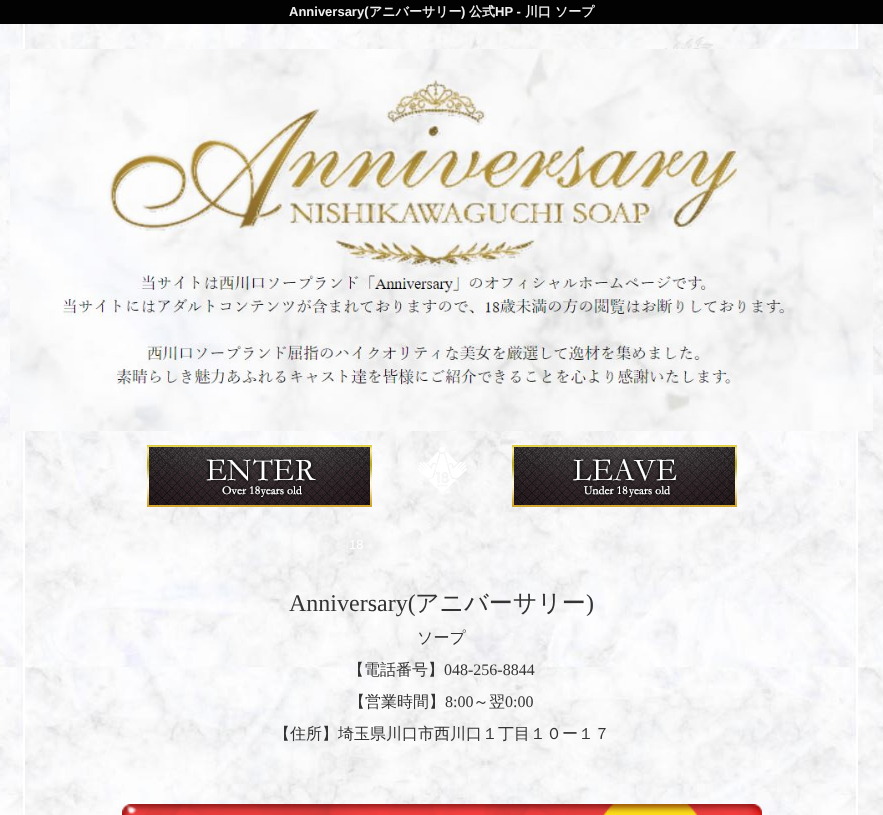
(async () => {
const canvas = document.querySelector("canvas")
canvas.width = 883
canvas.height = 815
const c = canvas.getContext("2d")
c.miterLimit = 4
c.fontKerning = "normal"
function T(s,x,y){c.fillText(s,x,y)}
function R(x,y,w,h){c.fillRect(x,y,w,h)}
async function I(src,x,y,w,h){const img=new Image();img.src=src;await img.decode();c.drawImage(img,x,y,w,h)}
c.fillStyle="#fff"
R(0,0,883,815)
await I("1.png",0,24,883,791)
c.fillStyle="#020203"
R(0,0,883,24)
c.font="bold 13px Liberation Sans"
c.fillStyle="#f0efef"
T("Anniversary(",289,16)
c.font="bold 13px WenQuanYi Zen Hei"
T("アニバーサリー",369,16)
c.font="bold 13px Liberation Sans"
T(")",461,16)
c.font="bold 13px WenQuanYi Zen Hei"
T("公式",469,16)
c.font="bold 13px Liberation Sans"
T("HP -",495,16)
c.font="bold 13px WenQuanYi Zen Hei"
T("川口 ソープ",525,16)
await I("2.png",10,49,863,382)
await I("3.png",147,445,225,62)
await I("4.png",418,447,49,46)
await I("5.png",512,445,225,62)
c.font="13px Liberation Sans"
c.fillStyle="#fff"
T("18",349,549)
c.font="24px Liberation Serif"
c.fillStyle="#333"
T("Anniversary(",289,611)
c.font="500 24px WenQuanYi Zen Hei"
T("アニバーサリー",415,611)
c.font="24px Liberation Serif"
T(")",586,611)
c.font="500 16px WenQuanYi Zen Hei"
T("ソープ",417,643)
T("【電話番号】",348,675)
c.font="16px Liberation Serif"
T("048-256-8844",444,675)
c.font="500 16px WenQuanYi Zen Hei"
T("【営業時間】",349,707)
c.font="16px Liberation Serif"
T("8:00",445,707)
c.font="500 16px WenQuanYi Zen Hei"
T("～翌",473,707)
c.font="16px Liberation Serif"
T("0:00",505,707)
c.font="500 16px WenQuanYi Zen Hei"
T("【住所】埼玉県川口市西川口１丁目１０ー１７",274,739)
await I("6.png",122,804,640,11)
})()
